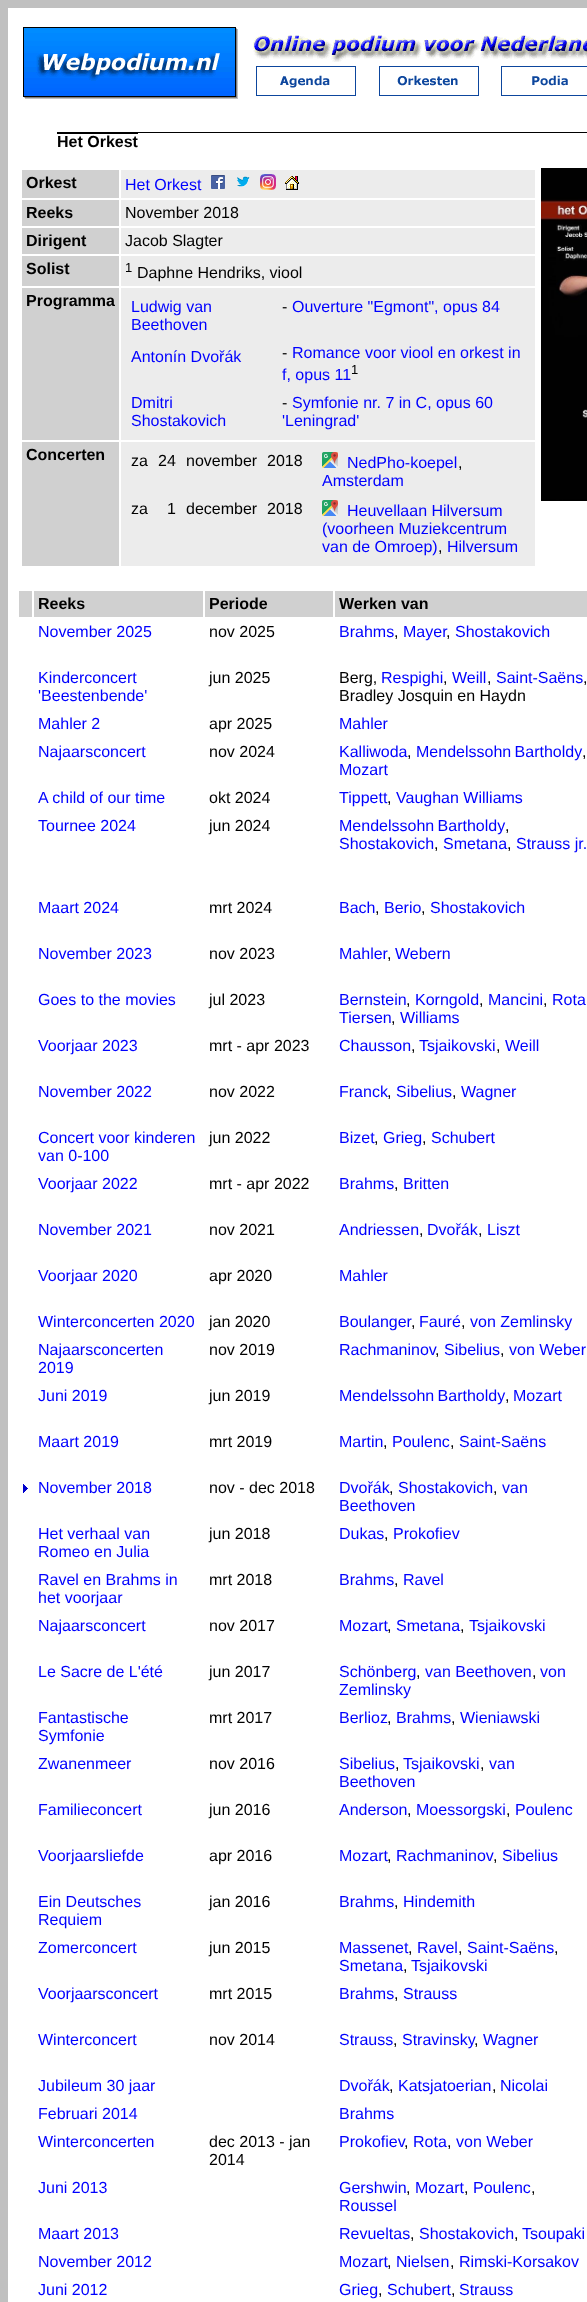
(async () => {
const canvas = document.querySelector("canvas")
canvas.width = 587
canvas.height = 2302
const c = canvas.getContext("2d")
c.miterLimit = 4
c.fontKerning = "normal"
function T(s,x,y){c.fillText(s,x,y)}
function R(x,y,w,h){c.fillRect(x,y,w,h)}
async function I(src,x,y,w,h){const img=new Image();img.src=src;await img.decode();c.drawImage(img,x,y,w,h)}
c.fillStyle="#c0c0c0"
R(0,0,587,2302)
c.fillStyle="#fff"
R(8,8,579,2294)
await I("1.png",23,27,215,72)
await I("2.png",253,35,334,27)
await I("3.png",256,66,100,30)
await I("4.png",379,66,100,30)
await I("5.png",501,66,86,30)
c.fillStyle="#000"
R(57,132,530,1)
c.font="bold 16px Liberation Sans"
T("Het Orkest",57,147)
R(57,133,81,1)
c.fillStyle="#d0d0d0"
R(22,170,97,28)
c.fillStyle="#000"
T("Orkest",26,188)
c.fillStyle="#ececec"
R(121,170,414,28)
c.font="16px Liberation Sans"
c.fillStyle="#00f"
T("Het Orkest",125,190)
await I("6.png",211,175,14,14)
await I("7.png",237,176,13,11)
await I("8.png",260,174,16,16)
await I("9.png",285,176,14,14)
c.fillStyle="#d0d0d0"
R(22,200,97,26)
c.font="bold 16px Liberation Sans"
c.fillStyle="#000"
T("Reeks",26,218)
c.fillStyle="#ececec"
R(121,200,414,26)
c.font="16px Liberation Sans"
c.fillStyle="#000"
T("November 2018",125,218)
c.fillStyle="#d0d0d0"
R(22,228,97,26)
c.font="bold 16px Liberation Sans"
c.fillStyle="#000"
T("Dirigent",26,246)
c.fillStyle="#ececec"
R(121,228,414,26)
c.font="16px Liberation Sans"
c.fillStyle="#000"
T("Jacob Slagter",125,246)
c.fillStyle="#d0d0d0"
R(22,256,97,30)
c.font="bold 16px Liberation Sans"
c.fillStyle="#000"
T("Solist",26,274)
c.fillStyle="#ececec"
R(121,256,414,30)
c.font="13px Liberation Sans"
c.fillStyle="#000"
T("1",125,272)
c.font="16px Liberation Sans"
T("Daphne Hendriks, viool",137,278)
c.fillStyle="#d0d0d0"
R(22,288,97,152)
c.font="bold 16px Liberation Sans"
c.fillStyle="#000"
T("Programma",26,306)
c.fillStyle="#ececec"
R(121,288,414,152)
c.font="16px Liberation Sans"
c.fillStyle="#00f"
T("Ludwig van",131,312)
T("Beethoven",131,330)
c.fillStyle="#000"
T("-",282,312)
c.fillStyle="#00f"
T("Ouverture \"Egmont\", opus 84",292,312)
T("Antonín Dvořák",131,362)
c.fillStyle="#000"
T("-",282,358)
c.fillStyle="#00f"
T("Romance voor viool en orkest in",292,358)
T("f, opus 11",282,380)
c.font="13px Liberation Sans"
c.fillStyle="#000"
T("1",351,374)
c.font="16px Liberation Sans"
c.fillStyle="#00f"
T("Dmitri",131,408)
T("Shostakovich",131,426)
c.fillStyle="#000"
T("-",282,408)
c.fillStyle="#00f"
T("Symfonie nr. 7 in C, opus 60",292,408)
T("'Leningrad'",282,426)
c.fillStyle="#d0d0d0"
R(22,442,97,124)
c.font="bold 16px Liberation Sans"
c.fillStyle="#000"
T("Concerten",26,460)
c.fillStyle="#ececec"
R(121,442,414,124)
c.font="16px Liberation Sans"
c.fillStyle="#000"
T("za",131,466)
T("24",158,466)
T("november",186,466)
T("2018",267,466)
await I("10.png",322,452,16,16)
c.fillStyle="#00f"
T("NedPho-koepel",347,468)
c.fillStyle="#000"
T(",",458,468)
c.fillStyle="#00f"
T("Amsterdam",322,486)
c.fillStyle="#000"
T("za",131,514)
T("1",167,514)
T("december",186,514)
T("2018",267,514)
await I("10.png",322,500,16,16)
c.fillStyle="#00f"
T("Heuvellaan Hilversum",347,516)
T("(voorheen Muziekcentrum",322,534)
T("van de Omroep)",322,552)
c.fillStyle="#000"
T(",",438,552)
c.fillStyle="#00f"
T("Hilversum",447,552)
await I("11.png",541,168,46,333)
c.fillStyle="#d0d0d0"
R(19,591,13,26)
R(34,591,169,26)
c.font="bold 16px Liberation Sans"
c.fillStyle="#000"
T("Reeks",38,609)
c.fillStyle="#d0d0d0"
R(205,591,128,26)
c.fillStyle="#000"
T("Periode",209,609)
c.fillStyle="#d0d0d0"
R(335,591,252,26)
c.fillStyle="#000"
T("Werken van",339,609)
c.font="16px Liberation Sans"
c.fillStyle="#00f"
T("November 2025",38,637)
c.fillStyle="#000"
T("nov 2025",209,637)
c.fillStyle="#00f"
T("Brahms",339,637)
c.fillStyle="#000"
T(",",394,637)
c.fillStyle="#00f"
T("Mayer",403,637)
c.fillStyle="#000"
T(",",446,637)
c.fillStyle="#00f"
T("Shostakovich",455,637)
T("Kinderconcert",38,683)
T("'Beestenbende'",38,701)
c.fillStyle="#000"
T("jun 2025",209,683)
T("Berg,",339,683)
c.fillStyle="#00f"
T("Respighi",381,683)
c.fillStyle="#000"
T(",",443,683)
c.fillStyle="#00f"
T("Weill",452,683)
c.fillStyle="#000"
T(",",487,683)
c.fillStyle="#00f"
T("Saint-Saëns",496,683)
c.fillStyle="#000"
T(",",583,683)
T("Bradley Josquin en Haydn",339,701)
c.fillStyle="#00f"
T("Mahler 2",38,729)
c.fillStyle="#000"
T("apr 2025",209,729)
c.fillStyle="#00f"
T("Mahler",339,729)
T("Najaarsconcert",38,757)
c.fillStyle="#000"
T("nov 2024",209,757)
c.fillStyle="#00f"
T("Kalliwoda",339,757)
c.fillStyle="#000"
T(",",407,757)
c.wordSpacing="-1px"
c.fillStyle="#00f"
T("Mendelssohn Bartholdy",416,757)
c.wordSpacing="0px"
c.fillStyle="#000"
T(",",582,757)
c.fillStyle="#00f"
T("Mozart",339,775)
T("A child of our time",38,803)
c.fillStyle="#000"
T("okt 2024",209,803)
c.fillStyle="#00f"
T("Tippett",339,803)
c.fillStyle="#000"
T(",",387,803)
c.fillStyle="#00f"
T("Vaughan Williams",396,803)
T("Tournee 2024",38,831)
c.fillStyle="#000"
T("jun 2024",209,831)
c.wordSpacing="-1px"
c.fillStyle="#00f"
T("Mendelssohn Bartholdy",339,831)
c.wordSpacing="0px"
c.fillStyle="#000"
T(",",505,831)
c.fillStyle="#00f"
T("Shostakovich",339,849)
c.fillStyle="#000"
T(",",434,849)
c.fillStyle="#00f"
T("Smetana",443,849)
c.fillStyle="#000"
T(",",507,849)
c.fillStyle="#00f"
T("Strauss jr.",516,849)
T("Maart 2024",38,913)
c.fillStyle="#000"
T("mrt 2024",209,913)
c.fillStyle="#00f"
T("Bach",339,913)
c.fillStyle="#000"
T(",",375,913)
c.fillStyle="#00f"
T("Berio",384,913)
c.fillStyle="#000"
T(",",421,913)
c.fillStyle="#00f"
T("Shostakovich",430,913)
T("November 2023",38,959)
c.fillStyle="#000"
T("nov 2023",209,959)
c.fillStyle="#00f"
T("Mahler",339,959)
c.fillStyle="#000"
T(",",387,959)
c.fillStyle="#00f"
T("Webern",395,959)
T("Goes to the movies",38,1005)
c.fillStyle="#000"
T("jul 2023",209,1005)
c.fillStyle="#00f"
T("Bernstein",339,1005)
c.fillStyle="#000"
T(",",406,1005)
c.fillStyle="#00f"
T("Korngold",415,1005)
c.fillStyle="#000"
T(",",479,1005)
c.fillStyle="#00f"
T("Mancini",488,1005)
c.fillStyle="#000"
T(",",543,1005)
c.fillStyle="#00f"
T("Rota",552,1005)
T("Tiersen",339,1023)
c.fillStyle="#000"
T(",",391,1023)
c.fillStyle="#00f"
T("Williams",400,1023)
T("Voorjaar 2023",38,1051)
c.fillStyle="#000"
T("mrt - apr 2023",209,1051)
c.fillStyle="#00f"
T("Chausson",339,1051)
c.fillStyle="#000"
T(",",411,1051)
c.fillStyle="#00f"
T("Tsjaikovski",419,1051)
c.fillStyle="#000"
T(",",496,1051)
c.fillStyle="#00f"
T("Weill",505,1051)
T("November 2022",38,1097)
c.fillStyle="#000"
T("nov 2022",209,1097)
c.fillStyle="#00f"
T("Franck",339,1097)
c.fillStyle="#000"
T(",",387,1097)
c.fillStyle="#00f"
T("Sibelius",396,1097)
c.fillStyle="#000"
T(",",452,1097)
c.fillStyle="#00f"
T("Wagner",461,1097)
T("Concert voor kinderen",38,1143)
T("van 0-100",38,1161)
c.fillStyle="#000"
T("jun 2022",209,1143)
c.fillStyle="#00f"
T("Bizet",339,1143)
c.fillStyle="#000"
T(",",374,1143)
c.fillStyle="#00f"
T("Grieg",383,1143)
c.fillStyle="#000"
T(",",422,1143)
c.fillStyle="#00f"
T("Schubert",431,1143)
T("Voorjaar 2022",38,1189)
c.fillStyle="#000"
T("mrt - apr 2022",209,1189)
c.fillStyle="#00f"
T("Brahms",339,1189)
c.fillStyle="#000"
T(",",394,1189)
c.fillStyle="#00f"
T("Britten",403,1189)
T("November 2021",38,1235)
c.fillStyle="#000"
T("nov 2021",209,1235)
c.fillStyle="#00f"
T("Andriessen",339,1235)
c.fillStyle="#000"
T(",",419,1235)
c.fillStyle="#00f"
T("Dvořák",427,1235)
c.fillStyle="#000"
T(",",478,1235)
c.fillStyle="#00f"
T("Liszt",487,1235)
T("Voorjaar 2020",38,1281)
c.fillStyle="#000"
T("apr 2020",209,1281)
c.fillStyle="#00f"
T("Mahler",339,1281)
T("Winterconcerten 2020",38,1327)
c.fillStyle="#000"
T("jan 2020",209,1327)
c.fillStyle="#00f"
T("Boulanger",339,1327)
c.fillStyle="#000"
T(",",411,1327)
c.fillStyle="#00f"
T("Fauré",419,1327)
c.fillStyle="#000"
T(",",461,1327)
c.fillStyle="#00f"
T("von Zemlinsky",470,1327)
T("Najaarsconcerten",38,1355)
T("2019",38,1373)
c.fillStyle="#000"
T("nov 2019",209,1355)
c.fillStyle="#00f"
T("Rachmaninov",339,1355)
c.fillStyle="#000"
T(",",435,1355)
c.fillStyle="#00f"
T("Sibelius",444,1355)
c.fillStyle="#000"
T(",",500,1355)
c.fillStyle="#00f"
T("von Weber",509,1355)
T("Juni 2019",38,1401)
c.fillStyle="#000"
T("jun 2019",209,1401)
c.wordSpacing="-1px"
c.fillStyle="#00f"
T("Mendelssohn Bartholdy",339,1401)
c.wordSpacing="0px"
c.fillStyle="#000"
T(",",505,1401)
c.fillStyle="#00f"
T("Mozart",513,1401)
T("Maart 2019",38,1447)
c.fillStyle="#000"
T("mrt 2019",209,1447)
c.fillStyle="#00f"
T("Martin",339,1447)
c.fillStyle="#000"
T(",",383,1447)
c.fillStyle="#00f"
T("Poulenc",392,1447)
c.fillStyle="#000"
T(",",450,1447)
c.fillStyle="#00f"
T("Saint-Saëns",459,1447)
await I("12.png",23,1484,5,9)
T("November 2018",38,1493)
c.fillStyle="#000"
T("nov - dec 2018",209,1493)
c.fillStyle="#00f"
T("Dvořák",339,1493)
c.fillStyle="#000"
T(",",389,1493)
c.fillStyle="#00f"
T("Shostakovich",398,1493)
c.fillStyle="#000"
T(",",493,1493)
c.fillStyle="#00f"
T("van",502,1493)
T("Beethoven",339,1511)
T("Het verhaal van",38,1539)
T("Romeo en Julia",38,1557)
c.fillStyle="#000"
T("jun 2018",209,1539)
c.fillStyle="#00f"
T("Dukas",339,1539)
c.fillStyle="#000"
T(",",384,1539)
c.fillStyle="#00f"
T("Prokofiev",393,1539)
T("Ravel en Brahms in",38,1585)
T("het voorjaar",38,1603)
c.fillStyle="#000"
T("mrt 2018",209,1585)
c.fillStyle="#00f"
T("Brahms",339,1585)
c.fillStyle="#000"
T(",",394,1585)
c.fillStyle="#00f"
T("Ravel",403,1585)
T("Najaarsconcert",38,1631)
c.fillStyle="#000"
T("nov 2017",209,1631)
c.fillStyle="#00f"
T("Mozart",339,1631)
c.fillStyle="#000"
T(",",387,1631)
c.fillStyle="#00f"
T("Smetana",396,1631)
c.fillStyle="#000"
T(",",460,1631)
c.fillStyle="#00f"
T("Tsjaikovski",469,1631)
T("Le Sacre de L'été",38,1677)
c.fillStyle="#000"
T("jun 2017",209,1677)
c.fillStyle="#00f"
T("Schönberg",339,1677)
c.fillStyle="#000"
T(",",416,1677)
c.fillStyle="#00f"
T("van Beethoven",425,1677)
c.fillStyle="#000"
T(",",532,1677)
c.fillStyle="#00f"
T("von",540,1677)
T("Zemlinsky",339,1695)
T("Fantastische",38,1723)
T("Symfonie",38,1741)
c.fillStyle="#000"
T("mrt 2017",209,1723)
c.fillStyle="#00f"
T("Berlioz",339,1723)
c.fillStyle="#000"
T(",",387,1723)
c.fillStyle="#00f"
T("Brahms",396,1723)
c.fillStyle="#000"
T(",",451,1723)
c.fillStyle="#00f"
T("Wieniawski",460,1723)
T("Zwanenmeer",38,1769)
c.fillStyle="#000"
T("nov 2016",209,1769)
c.fillStyle="#00f"
T("Sibelius",339,1769)
c.fillStyle="#000"
T(",",395,1769)
c.fillStyle="#00f"
T("Tsjaikovski",403,1769)
c.fillStyle="#000"
T(",",480,1769)
c.fillStyle="#00f"
T("van",489,1769)
T("Beethoven",339,1787)
T("Familieconcert",38,1815)
c.fillStyle="#000"
T("jun 2016",209,1815)
c.fillStyle="#00f"
T("Anderson",339,1815)
c.fillStyle="#000"
T(",",407,1815)
c.fillStyle="#00f"
T("Moessorgski",416,1815)
c.fillStyle="#000"
T(",",506,1815)
c.fillStyle="#00f"
T("Poulenc",515,1815)
T("Voorjaarsliefde",38,1861)
c.fillStyle="#000"
T("apr 2016",209,1861)
c.fillStyle="#00f"
T("Mozart",339,1861)
c.fillStyle="#000"
T(",",387,1861)
c.fillStyle="#00f"
T("Rachmaninov",396,1861)
T("Sibelius",502,1861)
c.fillStyle="#000"
T(",",493,1861)
c.fillStyle="#00f"
T("Ein Deutsches",38,1907)
T("Requiem",38,1925)
c.fillStyle="#000"
T("jan 2016",209,1907)
c.fillStyle="#00f"
T("Brahms",339,1907)
c.fillStyle="#000"
T(",",394,1907)
c.fillStyle="#00f"
T("Hindemith",403,1907)
T("Zomerconcert",38,1953)
c.fillStyle="#000"
T("jun 2015",209,1953)
c.fillStyle="#00f"
T("Massenet",339,1953)
c.fillStyle="#000"
T(",",408,1953)
c.fillStyle="#00f"
T("Ravel",417,1953)
c.fillStyle="#000"
T(",",458,1953)
c.fillStyle="#00f"
T("Saint-Saëns",467,1953)
c.fillStyle="#000"
T(",",554,1953)
c.fillStyle="#00f"
T("Smetana",339,1971)
c.fillStyle="#000"
T(",",403,1971)
c.fillStyle="#00f"
T("Tsjaikovski",411,1971)
T("Voorjaarsconcert",38,1999)
c.fillStyle="#000"
T("mrt 2015",209,1999)
c.fillStyle="#00f"
T("Brahms",339,1999)
c.fillStyle="#000"
T(",",394,1999)
c.fillStyle="#00f"
T("Strauss",403,1999)
T("Winterconcert",38,2045)
c.fillStyle="#000"
T("nov 2014",209,2045)
c.fillStyle="#00f"
T("Strauss",339,2045)
c.fillStyle="#000"
T(",",393,2045)
c.fillStyle="#00f"
T("Stravinsky",402,2045)
c.fillStyle="#000"
T(",",474,2045)
c.fillStyle="#00f"
T("Wagner",483,2045)
T("Jubileum 30 jaar",38,2091)
T("Dvořák",339,2091)
c.fillStyle="#000"
T(",",389,2091)
c.fillStyle="#00f"
T("Katsjatoerian",398,2091)
c.fillStyle="#000"
T(",",492,2091)
c.fillStyle="#00f"
T("Nicolai",500,2091)
T("Februari 2014",38,2119)
T("Brahms",339,2119)
T("Winterconcerten",38,2147)
c.fillStyle="#000"
T("dec 2013 - jan",209,2147)
T("2014",209,2165)
c.fillStyle="#00f"
T("Prokofiev",339,2147)
c.fillStyle="#000"
T(",",404,2147)
c.fillStyle="#00f"
T("Rota",413,2147)
c.fillStyle="#000"
T(",",447,2147)
c.fillStyle="#00f"
T("von Weber",456,2147)
T("Juni 2013",38,2193)
T("Gershwin",339,2193)
c.fillStyle="#000"
T(",",406,2193)
c.fillStyle="#00f"
T("Mozart",415,2193)
c.fillStyle="#000"
T(",",464,2193)
c.fillStyle="#00f"
T("Poulenc",473,2193)
c.fillStyle="#000"
T(",",531,2193)
c.fillStyle="#00f"
T("Roussel",339,2211)
T("Maart 2013",38,2239)
T("Revueltas",339,2239)
c.fillStyle="#000"
T(",",410,2239)
c.fillStyle="#00f"
T("Shostakovich",419,2239)
c.fillStyle="#000"
T(",",514,2239)
c.fillStyle="#00f"
T("Tsoupaki",522,2239)
T("November 2012",38,2267)
T("Mozart",339,2267)
c.fillStyle="#000"
T(",",387,2267)
c.fillStyle="#00f"
T("Nielsen",396,2267)
c.fillStyle="#000"
T(",",450,2267)
c.fillStyle="#00f"
T("Rimski-Korsakov",459,2267)
T("Juni 2012",38,2295)
T("Grieg",339,2295)
c.fillStyle="#000"
T(",",378,2295)
c.fillStyle="#00f"
T("Schubert",387,2295)
c.fillStyle="#000"
T(",",451,2295)
c.fillStyle="#00f"
T("Strauss",459,2295)
})()
